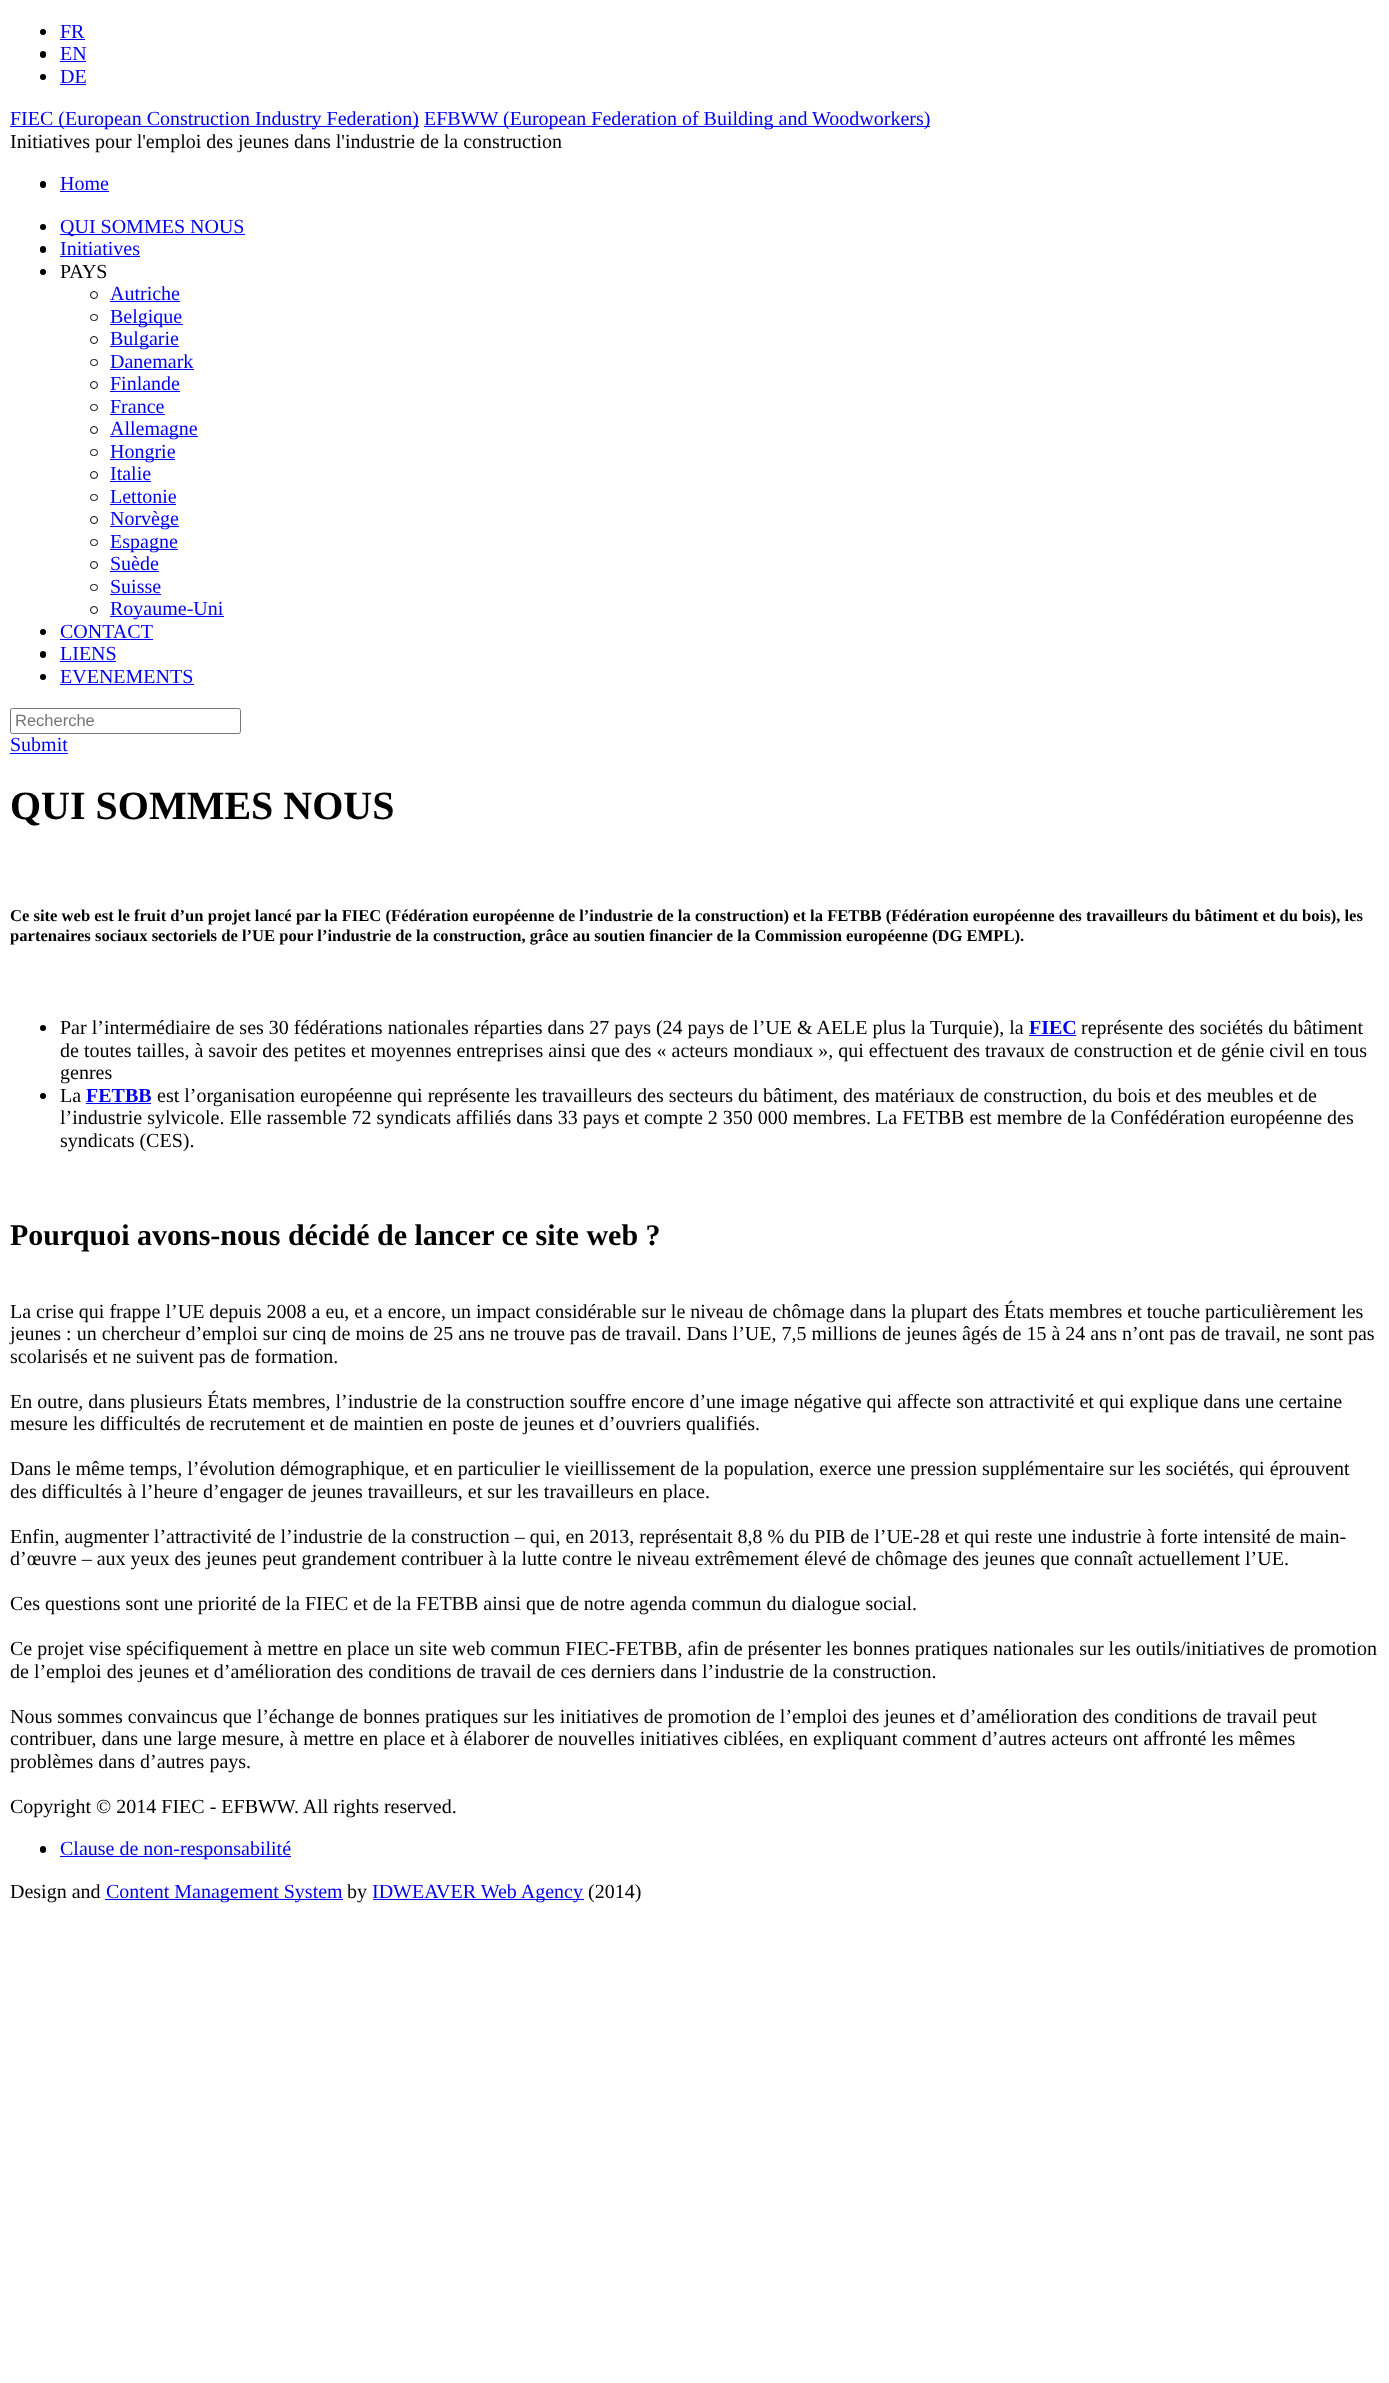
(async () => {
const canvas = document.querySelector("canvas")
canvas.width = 1389
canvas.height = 2383
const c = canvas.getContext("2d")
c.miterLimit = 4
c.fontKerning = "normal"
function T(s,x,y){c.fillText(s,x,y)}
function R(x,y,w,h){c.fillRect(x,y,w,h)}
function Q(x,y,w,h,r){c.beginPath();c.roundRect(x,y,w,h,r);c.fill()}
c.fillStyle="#fff"
R(0,0,1389,2383)
c.fillStyle="#000"
c.beginPath()
c.arc(43,32,3,0,7)
c.fill()
c.font="20px Liberation Serif"
c.fillStyle="#00e"
T("FR",60,38)
R(60,39,25,1)
c.fillStyle="#000"
Q(40,51,6,7,3)
c.fillStyle="#00e"
T("EN",60,60)
R(60,61,26,1)
c.fillStyle="#000"
c.beginPath()
c.arc(43,77,3,0,7)
c.fill()
c.fillStyle="#00e"
T("DE",60,83)
R(60,84,26,1)
R(10,126,409,1)
T("FIEC (European Construction Industry Federation)",10,125)
R(424,126,506,1)
T("EFBWW (European Federation of Building and Woodworkers)",424,125)
c.fillStyle="#000"
T("Initiatives pour l'emploi des jeunes dans l'industrie de la construction",10,148)
Q(40,181,6,7,3)
c.fillStyle="#00e"
T("Home",60,190)
R(60,191,49,1)
c.fillStyle="#000"
c.beginPath()
c.arc(43,227,3,0,7)
c.fill()
c.fillStyle="#00e"
R(60,234,185,1)
T("QUI SOMMES NOUS",60,233)
c.fillStyle="#000"
Q(40,246,6,7,3)
c.fillStyle="#00e"
T("Initiatives",60,255)
R(60,256,80,1)
c.fillStyle="#000"
c.beginPath()
c.arc(43,272,3,0,7)
c.fill()
T("PAYS",60,278)
c.beginPath()
c.arc(94,295,3.5,0,7)
c.strokeStyle="#000"
c.stroke()
c.fillStyle="#00e"
T("Autriche",110,300)
R(110,301,70,1)
c.beginPath()
c.roundRect(90.5,314.5,7,6,3)
c.stroke()
R(110,324,73,1)
T("Belgique",110,323)
c.beginPath()
c.arc(94,340,3.5,0,7)
c.stroke()
R(110,346,69,1)
T("Bulgarie",110,345)
c.beginPath()
c.roundRect(90.5,359.5,7,6,3)
c.stroke()
T("Danemark",110,368)
R(110,369,84,1)
c.beginPath()
c.arc(94,385,3.5,0,7)
c.stroke()
T("Finlande",110,390)
R(110,391,70,1)
c.beginPath()
c.roundRect(90.5,404.5,7,6,3)
c.stroke()
T("France",110,413)
R(110,414,55,1)
c.beginPath()
c.arc(94,430,3.5,0,7)
c.stroke()
R(110,436,88,1)
T("Allemagne",110,435)
c.beginPath()
c.roundRect(90.5,449.5,7,6,3)
c.stroke()
R(110,459,65,1)
T("Hongrie",110,458)
c.beginPath()
c.arc(94,475,3.5,0,7)
c.stroke()
T("Italie",110,480)
R(110,481,41,1)
c.beginPath()
c.roundRect(90.5,494.5,7,6,3)
c.stroke()
T("Lettonie",110,503)
R(110,504,66,1)
c.beginPath()
c.arc(94,520,3.5,0,7)
c.stroke()
R(110,526,69,1)
T("Norvège",110,525)
c.beginPath()
c.roundRect(90.5,539.5,7,6,3)
c.stroke()
R(110,549,68,1)
T("Espagne",110,548)
c.beginPath()
c.arc(94,565,3.5,0,7)
c.stroke()
T("Suède",110,570)
R(110,571,49,1)
c.beginPath()
c.roundRect(90.5,584.5,7,6,3)
c.stroke()
T("Suisse",110,593)
R(110,594,51,1)
c.beginPath()
c.arc(94,610,3.5,0,7)
c.stroke()
R(110,616,114,1)
T("Royaume-Uni",110,615)
c.fillStyle="#000"
c.beginPath()
c.arc(43,632,3,0,7)
c.fill()
c.fillStyle="#00e"
T("CONTACT",60,638)
R(60,639,93,1)
c.fillStyle="#000"
Q(40,651,6,7,3)
c.fillStyle="#00e"
T("LIENS",60,660)
R(60,661,56,1)
c.fillStyle="#000"
c.beginPath()
c.arc(43,677,3,0,7)
c.fill()
c.fillStyle="#00e"
T("EVENEMENTS",60,683)
R(60,684,134,1)
c.beginPath()
c.roundRect(10.5,708.5,230,25,2)
c.strokeStyle="#767676"
c.stroke()
c.font="16.5px Liberation Sans"
c.fillStyle="#757575"
T("Recherche",15,726)
c.font="20px Liberation Serif"
c.fillStyle="#00e"
T("Submit",10,751)
R(10,753,58,1)
c.font="bold 40px Liberation Serif"
c.fillStyle="#000"
T("QUI SOMMES NOUS",10,819)
c.font="bold 16.6px Liberation Serif"
T("Ce site web est le fruit d’un projet lancé par la FIEC (Fédération européenne de l’industrie de la construction) et la FETBB (Fédération européenne des travailleurs du bâtiment et du bois), les",10,921)
T("partenaires sociaux sectoriels de l’UE pour l’industrie de la construction, grâce au soutien financier de la Commission européenne (DG EMPL).",10,941)
c.beginPath()
c.arc(43,1028,3,0,7)
c.fill()
c.font="20px Liberation Serif"
T("Par l’intermédiaire de ses 30 fédérations nationales réparties dans 27 pays (24 pays de l’UE & AELE plus la Turquie), la",60,1034)
c.font="bold 20px Liberation Serif"
c.fillStyle="#00e"
T("FIEC",1029,1034)
R(1029,1035,47,1)
c.font="20px Liberation Serif"
c.fillStyle="#000"
T("représente des sociétés du bâtiment",1081,1034)
T("de toutes tailles, à savoir des petites et moyennes entreprises ainsi que des « acteurs mondiaux », qui effectuent des travaux de construction et de génie civil en tous",60,1057)
T("genres",60,1079)
c.beginPath()
c.arc(43,1096,3,0,7)
c.fill()
T("La",60,1102)
c.font="bold 20px Liberation Serif"
c.fillStyle="#00e"
T("FETBB",86,1102)
R(86,1103,65,1)
c.font="20px Liberation Serif"
c.fillStyle="#000"
T("est l’organisation européenne qui représente les travailleurs des secteurs du bâtiment, des matériaux de construction, du bois et des meubles et de",157,1102)
T("l’industrie sylvicole. Elle rassemble 72 syndicats affiliés dans 33 pays et compte 2 350 000 membres. La FETBB est membre de la Confédération européenne des",60,1124)
T("syndicats (CES).",60,1147)
c.font="bold 30px Liberation Serif"
T("Pourquoi avons-nous décidé de lancer ce site web ?",10,1245)
c.font="20px Liberation Serif"
T("La crise qui frappe l’UE depuis 2008 a eu, et a encore, un impact considérable sur le niveau de chômage dans la plupart des États membres et touche particulièrement les",10,1318)
T("jeunes : un chercheur d’emploi sur cinq de moins de 25 ans ne trouve pas de travail. Dans l’UE, 7,5 millions de jeunes âgés de 15 à 24 ans n’ont pas de travail, ne sont pas",10,1340)
T("scolarisés et ne suivent pas de formation.",10,1363)
T("En outre, dans plusieurs États membres, l’industrie de la construction souffre encore d’une image négative qui affecte son attractivité et qui explique dans une certaine",10,1408)
T("mesure les difficultés de recrutement et de maintien en poste de jeunes et d’ouvriers qualifiés.",10,1430)
T("Dans le même temps, l’évolution démographique, et en particulier le vieillissement de la population, exerce une pression supplémentaire sur les sociétés, qui éprouvent",10,1475)
T("des difficultés à l’heure d’engager de jeunes travailleurs, et sur les travailleurs en place.",10,1498)
T("Enfin, augmenter l’attractivité de l’industrie de la construction – qui, en 2013, représentait 8,8 % du PIB de l’UE-28 et qui reste une industrie à forte intensité de main-",10,1543)
T("d’œuvre – aux yeux des jeunes peut grandement contribuer à la lutte contre le niveau extrêmement élevé de chômage des jeunes que connaît actuellement l’UE.",10,1565)
T("Ces questions sont une priorité de la FIEC et de la FETBB ainsi que de notre agenda commun du dialogue social.",10,1610)
T("Ce projet vise spécifiquement à mettre en place un site web commun FIEC-FETBB, afin de présenter les bonnes pratiques nationales sur les outils/initiatives de promotion",10,1655)
T("de l’emploi des jeunes et d’amélioration des conditions de travail de ces derniers dans l’industrie de la construction.",10,1678)
T("Nous sommes convaincus que l’échange de bonnes pratiques sur les initiatives de promotion de l’emploi des jeunes et d’amélioration des conditions de travail peut",10,1723)
T("contribuer, dans une large mesure, à mettre en place et à élaborer de nouvelles initiatives ciblées, en expliquant comment d’autres acteurs ont affronté les mêmes",10,1745)
T("problèmes dans d’autres pays.",10,1768)
T("Copyright © 2014 FIEC - EFBWW. All rights reserved.",10,1813)
Q(40,1846,6,7,3)
c.fillStyle="#00e"
R(60,1856,231,1)
T("Clause de non-responsabilité",60,1855)
c.fillStyle="#000"
T("Design and",10,1898)
c.fillStyle="#00e"
R(105,1899,238,1)
T("Content Management System",106,1898)
c.fillStyle="#000"
T("by",347,1898)
c.fillStyle="#00e"
R(373,1899,211,1)
T("IDWEAVER Web Agency",372,1898)
c.fillStyle="#000"
T("(2014)",588,1898)
})()
